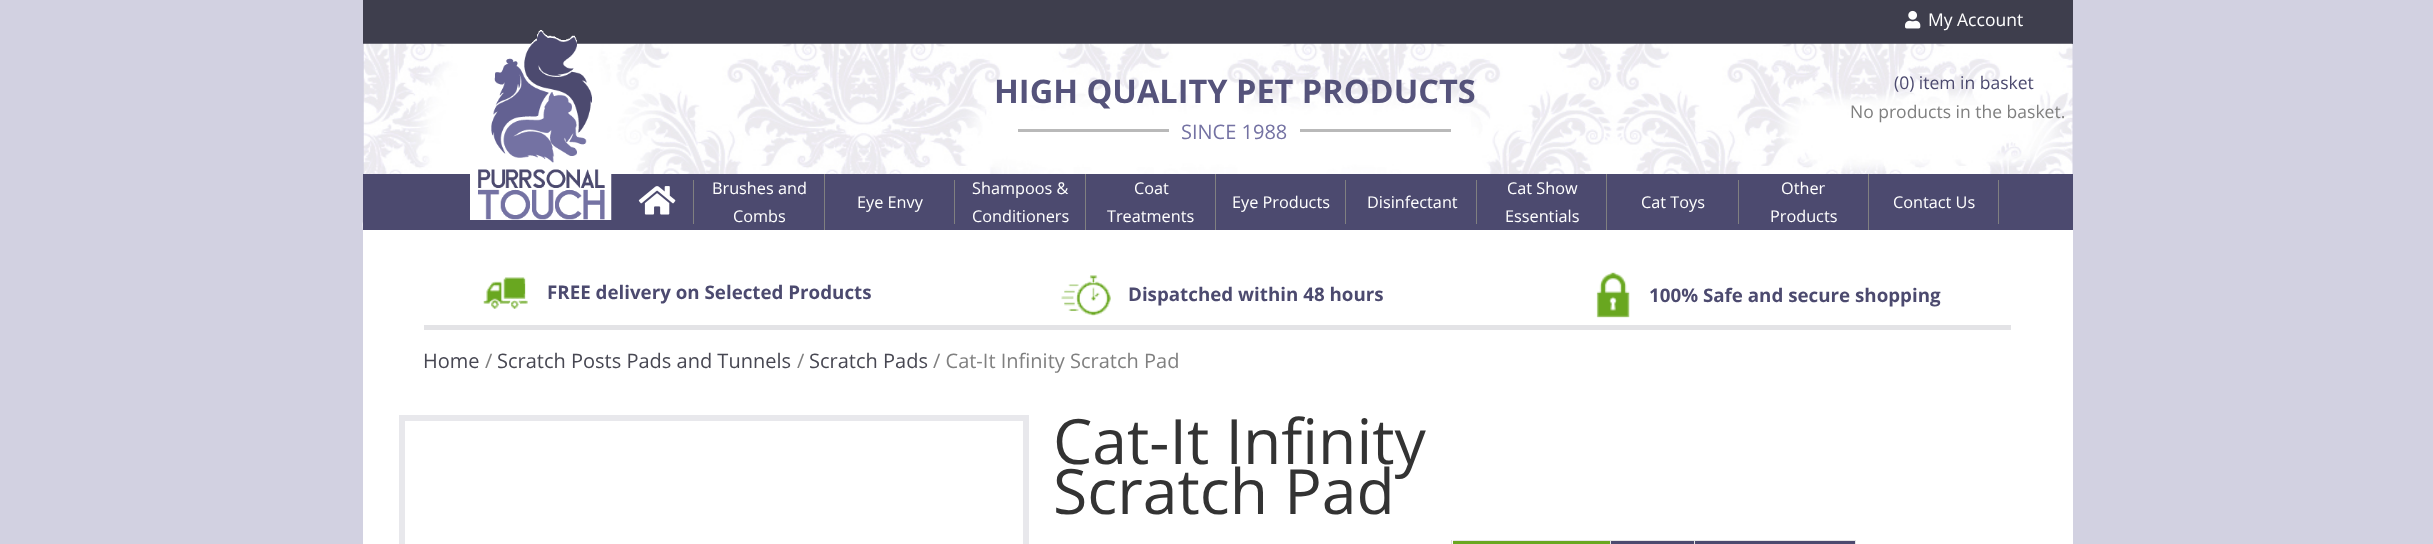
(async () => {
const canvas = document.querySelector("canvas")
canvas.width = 2433
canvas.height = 544
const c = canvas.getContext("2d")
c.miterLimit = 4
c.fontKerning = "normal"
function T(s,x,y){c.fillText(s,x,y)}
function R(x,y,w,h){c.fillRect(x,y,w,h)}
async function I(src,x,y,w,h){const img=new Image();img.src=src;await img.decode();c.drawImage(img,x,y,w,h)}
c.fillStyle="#d2d1e1"
R(0,0,2433,544)
c.fillStyle="#3e3e4d"
R(363,0,1710,44)
await I("1.png",1905,10,16,19)
c.font="17.5px Open Sans"
c.fillStyle="#fff"
T("My Account",1928,26)
await I("2.png",362,43,1711,186)
c.fillStyle="#4c4a6f"
R(363,174,1710,56)
await I("3.png",470,30,142,190)
c.font="bold 32.5px Open Sans"
c.fillStyle="#55537b"
T("HIGH QUALITY PET PRODUCTS",994,103)
c.fillStyle="#b9b9b9"
R(1018,129,151,3)
c.font="20px Open Sans"
c.fillStyle="#7472a3"
T("SINCE 1988",1181,139)
c.fillStyle="#b9b9b9"
R(1300,129,151,3)
c.font="17.5px Open Sans"
c.fillStyle="#4c4a6f"
T("(0) item in basket",1894,89)
c.fillStyle="#808080"
T("No products in the basket.",1850,118)
R(693,180,1,44)
await I("4.png",638,186,38,29)
R(824,174,1,56)
c.font="16.25px Open Sans"
c.fillStyle="#fff"
T("Brushes and",712,194)
T("Combs",733,222)
c.fillStyle="#808080"
R(954,180,1,44)
c.fillStyle="#fff"
T("Eye Envy",857,208)
c.fillStyle="#808080"
R(1085,174,1,56)
c.fillStyle="#fff"
T("Shampoos &",972,194)
T("Conditioners",972,222)
c.fillStyle="#808080"
R(1215,174,1,56)
c.fillStyle="#fff"
T("Coat",1134,194)
T("Treatments",1107,222)
c.fillStyle="#808080"
R(1345,180,1,44)
c.fillStyle="#fff"
T("Eye Products",1232,208)
c.fillStyle="#808080"
R(1476,180,1,44)
c.fillStyle="#fff"
T("Disinfectant",1367,208)
c.fillStyle="#808080"
R(1606,174,1,56)
c.fillStyle="#fff"
T("Cat Show",1507,194)
T("Essentials",1505,222)
c.fillStyle="#808080"
R(1738,180,1,44)
c.fillStyle="#fff"
T("Cat Toys",1641,208)
c.fillStyle="#808080"
R(1868,174,1,56)
c.fillStyle="#fff"
T("Other",1781,194)
T("Products",1770,222)
c.fillStyle="#808080"
R(1998,180,1,44)
c.fillStyle="#fff"
T("Contact Us",1893,208)
R(363,230,1710,314)
await I("5.png",483,277,45,32)
c.font="bold 18.75px Open Sans"
c.fillStyle="#4c4a6f"
T("FREE delivery on Selected Products",547,299)
await I("6.png",1061,275,50,41)
T("Dispatched within 48 hours",1128,301)
await I("7.png",1596,272,34,46)
T("100% Safe and secure shopping",1649,302)
c.fillStyle="#e3e3e6"
R(424,325,1587,5)
c.font="20px Open Sans"
c.fillStyle="#474752"
T("Home",423,368)
c.fillStyle="#808080"
T("/",485,368)
c.fillStyle="#474752"
T("Scratch Posts Pads and Tunnels",497,368)
c.fillStyle="#808080"
T("/",797,368)
c.fillStyle="#474752"
T("Scratch Pads",809,368)
c.fillStyle="#808080"
T("/ Cat-It Infinity Scratch Pad",933,368)
c.strokeStyle="#e8e8ec"
c.lineWidth=6
c.strokeRect(402,418,624,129)
c.font="62.5px Open Sans"
c.fillStyle="#333"
T("Cat-It Infinity",1053,464)
T("Scratch Pad",1053,514)
c.fillStyle="#ddd"
R(1451,540,1,4)
c.fillStyle="#4c4a6f"
R(1604,541,252,3)
c.fillStyle="#e6e6e6"
R(1453,540,403,1)
c.fillStyle="#69a720"
R(1453,541,158,3)
c.fillStyle="#e6e6e6"
R(1610,540,1,4)
R(1855,540,1,4)
R(1694,540,1,4)
})()
